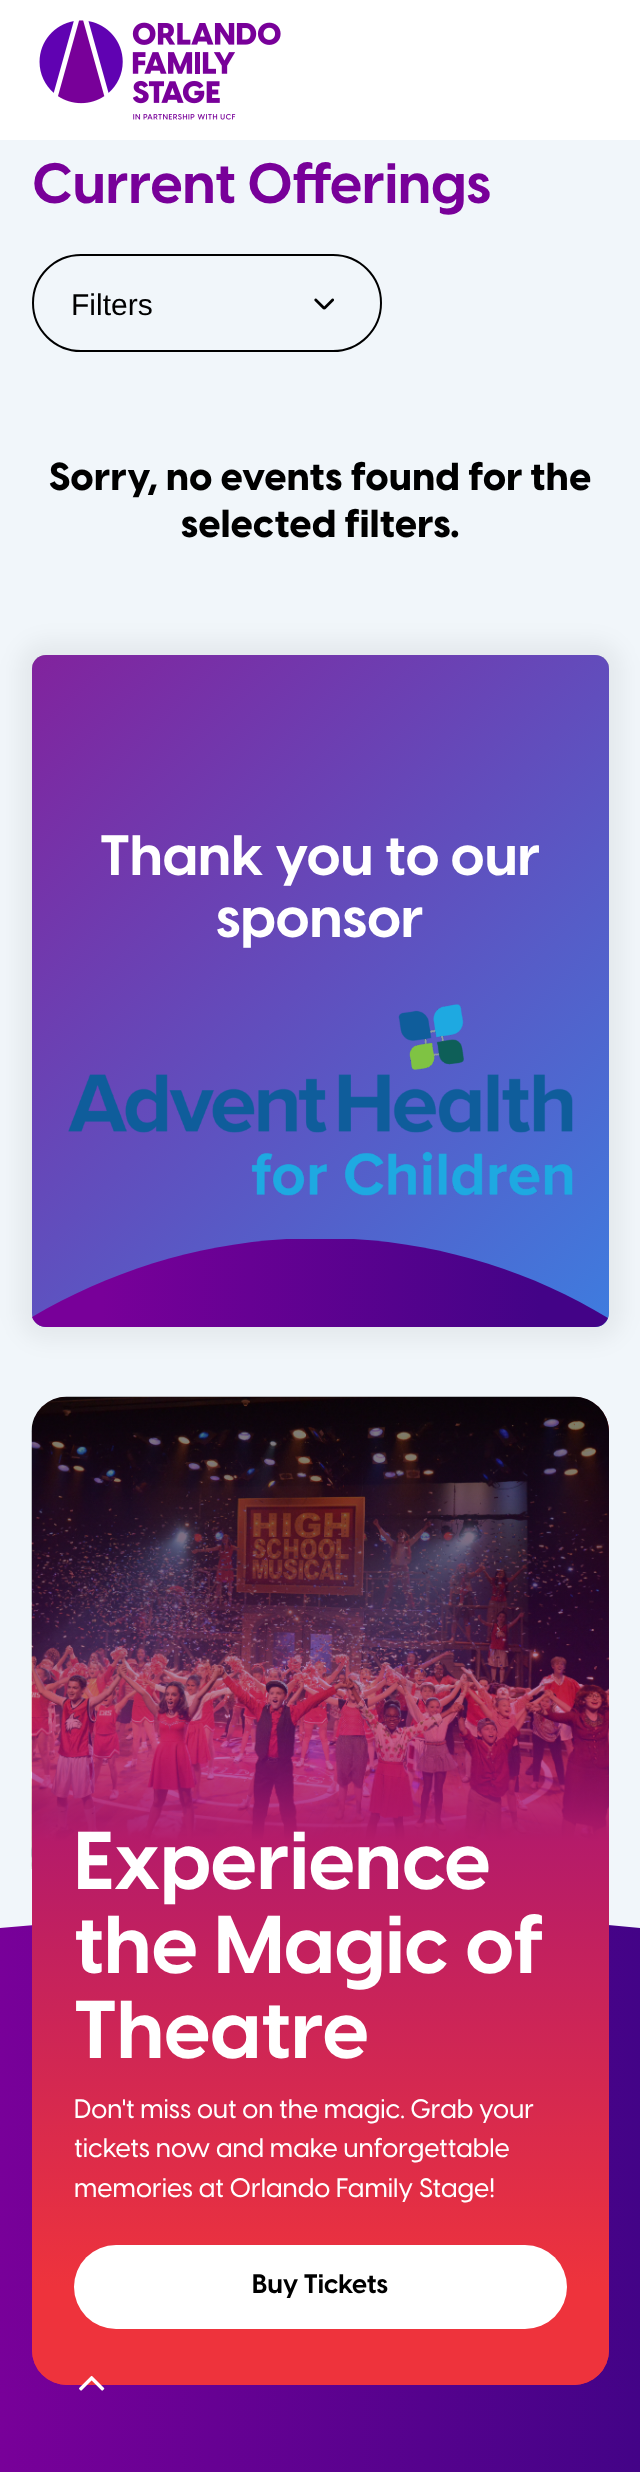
(async () => {
const canvas = document.querySelector("canvas")
canvas.width = 640
canvas.height = 2472
const c = canvas.getContext("2d")
c.miterLimit = 4
c.fontKerning = "normal"
function T(s,x,y){c.fillText(s,x,y)}
function R(x,y,w,h){c.fillRect(x,y,w,h)}
function Q(x,y,w,h,r){c.beginPath();c.roundRect(x,y,w,h,r);c.fill()}
async function I(src,x,y,w,h){const img=new Image();img.src=src;await img.decode();c.drawImage(img,x,y,w,h)}
let gradient, path
c.fillStyle="#f1f6fa"
R(0,0,640,2472)
c.fillStyle="#fff"
R(0,0,640,140)
await I("1.png",39,20,242,100)
c.font="bold 56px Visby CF"
c.fillStyle="#780099"
T("Current Offerings",32,203)
c.beginPath()
c.roundRect(33,255,348,96,48)
c.strokeStyle="#000"
c.lineWidth=2
c.stroke()
c.font="30px Liberation Sans"
c.fillStyle="#000"
T("Filters",71,315)
await I("2.png",314,298,20,12)
c.letterSpacing="0.4px"
c.font="800 38.5px Visby CF"
T("Sorry, no events found for the",49,490)
T("selected filters.",181,537)
c.fillStyle="#a8adae"
Q(32,655,577,672,14)
gradient = c.createLinearGradient(7.9,678,633,1303)
gradient.addColorStop(0,"#780099cc")
gradient.addColorStop(1,"#2470ebcc")
c.fillStyle = gradient
Q(32,655,577,672,14)
c.save()
path = new Path2D("M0 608h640v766h-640zm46 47h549c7.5 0 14 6.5 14 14v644c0 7.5-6.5 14-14 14h-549c-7.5 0-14-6.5-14-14v-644c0-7.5 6.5-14 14-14z")
c.clip(path,"evenodd")
c.fillStyle="#0000000d"
c.filter="blur(10.5px)"
c.beginPath()
c.roundRect(18,641,605,700,28)
c.fill()
c.filter="none"
c.restore()
c.save()
c.beginPath()
c.rect(32,1239,577,88)
c.clip()
gradient = c.createLinearGradient(103,1292,541,1293)
gradient.addColorStop(0,"#780099")
gradient.addColorStop(1,"#430387")
c.fillStyle = gradient
path = new Path2D("M320 1238c105 0 204 29 288 80c-2 5-7 9-13 9h-549c-6 0-12-4-14-10c85-50 183-79 288-79z")
c.fill(path)
c.restore()
c.letterSpacing="0px"
c.font="bold 56px Visby CF"
c.fillStyle="#fff"
T("Thank you to our",100,875)
T("sponsor",216,937)
await I("3.png",68,1004,505,192)
gradient = c.createLinearGradient(0,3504,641,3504)
gradient.addColorStop(0,"#780099")
gradient.addColorStop(1,"#430387")
c.fillStyle = gradient
path = new Path2D("M0 1928c85-8 170-13 256-15h128c87 2 172 7 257 15v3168h-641z")
c.fill(path)
c.fillStyle="#ee333c"
Q(32,1397,577,988,35)
await I("4.png",31,1396,578,473)
gradient = c.createLinearGradient(320,2385,320,1397)
gradient.addColorStop(.1,"#ee333c")
gradient.addColorStop(.55,"#b51b69")
gradient.addColorStop(.7,"#7800994d")
gradient.addColorStop(1,"#78009900")
c.fillStyle = gradient
Q(32,1397,577,988,35)
c.font="bold 80.5px Visby CF"
c.fillStyle="#fff"
T("Experience",74,1889)
T("the Magic of",74,1973)
T("Theatre",74,2058)
c.font="500 26.25px Visby CF"
T("Don't miss out on the magic. Grab your",74,2118)
T("tickets now and make unforgettable",74,2157)
T("memories at Orlando Family Stage!",74,2197)
Q(74,2245,493,84,42)
c.font="bold 26.25px Visby CF"
c.fillStyle="#000"
T("Buy Tickets",252,2293)
await I("5.png",79,2375,26,16)
})()
